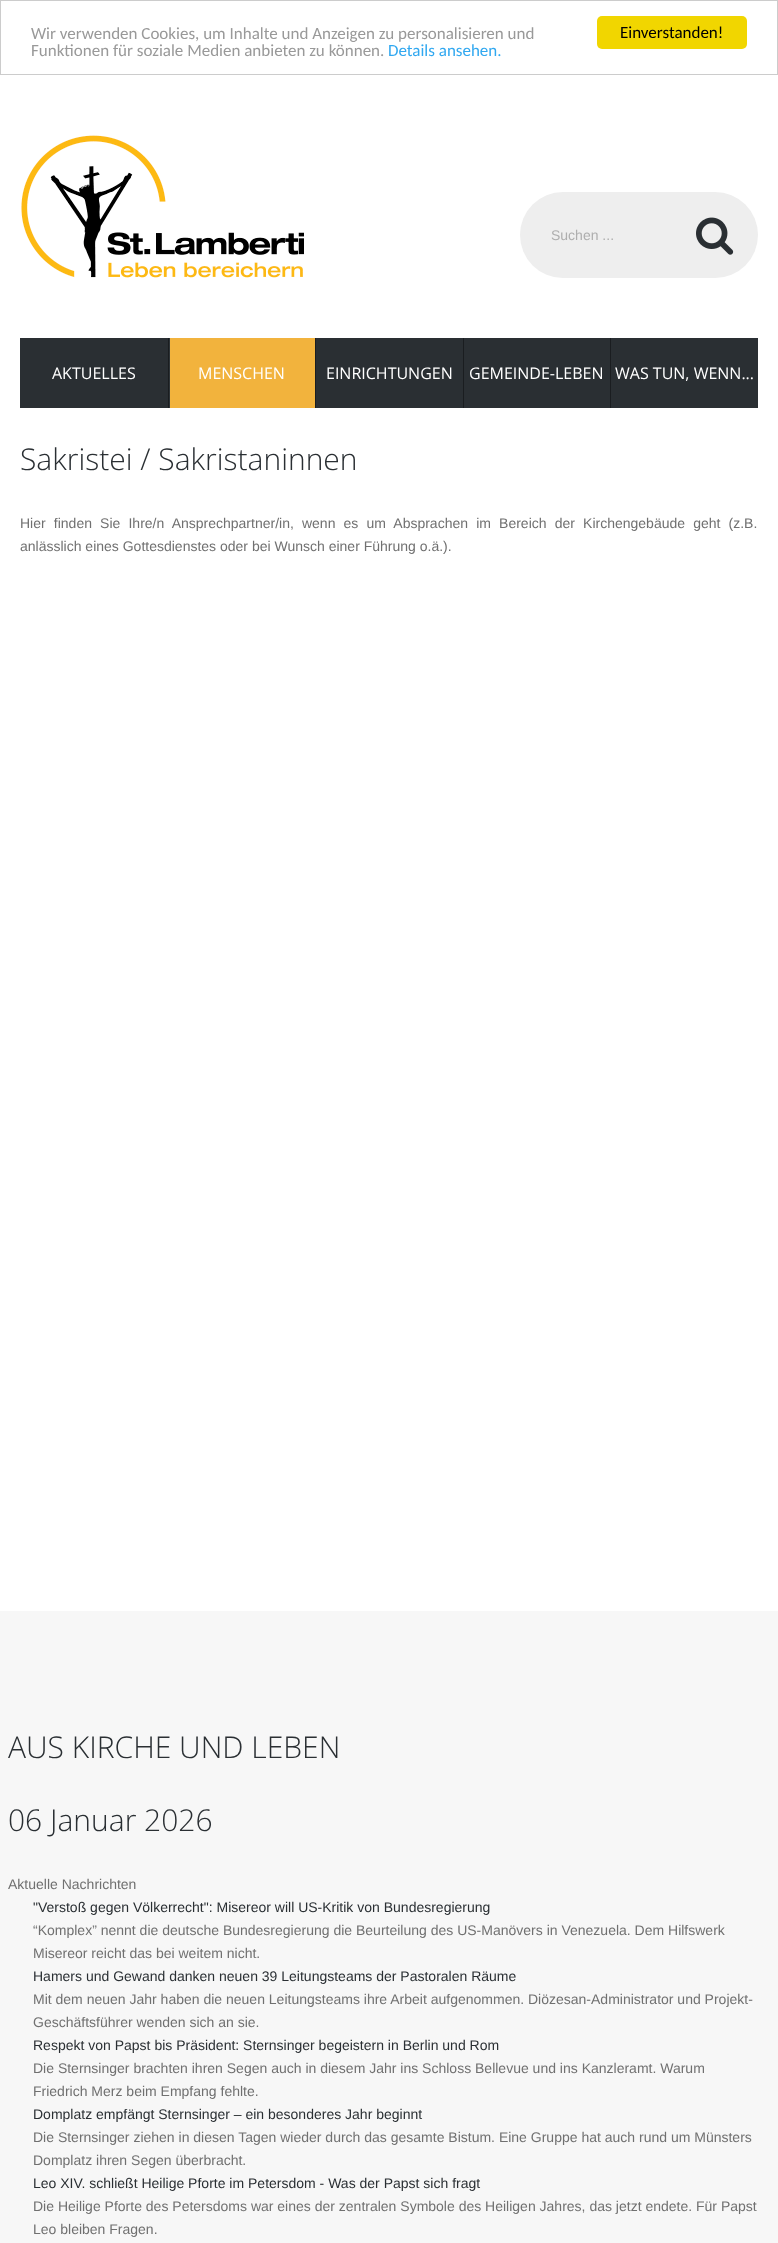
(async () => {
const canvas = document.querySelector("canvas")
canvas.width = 778
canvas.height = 2243
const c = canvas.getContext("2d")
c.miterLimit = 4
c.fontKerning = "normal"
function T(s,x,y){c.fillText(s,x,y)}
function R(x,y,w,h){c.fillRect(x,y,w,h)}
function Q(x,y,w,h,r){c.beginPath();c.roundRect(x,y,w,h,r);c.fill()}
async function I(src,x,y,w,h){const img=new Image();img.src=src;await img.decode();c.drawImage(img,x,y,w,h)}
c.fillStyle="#fff"
R(0,0,778,2243)
c.strokeStyle="#ccc"
c.strokeRect(.5,.5,777,74)
c.font="17px Carlito"
c.fillStyle="#999"
T("Wir verwenden Cookies, um Inhalte und Anzeigen zu personalisieren und",31,39)
T("Funktionen für soziale Medien anbieten zu können.",31,56)
c.fillStyle="#31a8f0"
T("Details ansehen.",388,56)
c.fillStyle="#f1d600"
Q(597,16,150,33,5)
c.fillStyle="#000"
T("Einverstanden!",620,38)
await I("1.png",21,135,283,143)
c.fillStyle="#eee"
Q(520,192,238,86,43)
c.font="14px Liberation Sans"
c.fillStyle="#aeaeae"
T("Suchen ...",551,240)
await I("2.png",696,217,38,38)
c.fillStyle="#2a2f33"
R(20,338,148,70)
c.font="16px Open Sans"
c.fillStyle="#fff"
T("AKTUELLES",52,379)
await I("3.png",168,338,2,70)
c.fillStyle="#f2b33d"
R(170,338,145,70)
c.fillStyle="#fff"
T("MENSCHEN",198,379)
c.fillStyle="#1a1d20"
R(315,338,1,70)
c.fillStyle="#2a2f33"
R(316,338,147,70)
c.fillStyle="#fff"
T("EINRICHTUNGEN",326,379)
c.fillStyle="#1a1d20"
R(463,338,1,70)
c.fillStyle="#2a2f33"
R(464,338,146,70)
c.fillStyle="#fff"
T("GEMEINDE-LEBEN",469,379)
c.fillStyle="#1a1d20"
R(610,338,1,70)
c.fillStyle="#2a2f33"
R(611,338,147,70)
c.fillStyle="#fff"
T("WAS TUN, WENN...",615,379)
c.font="300 30px Open Sans"
c.fillStyle="#2a2f33"
T("Sakristei / Sakristaninnen",20,470)
c.wordSpacing="4.25px"
c.font="14px Liberation Sans"
c.fillStyle="#707070"
T("Hier finden Sie Ihre/n Ansprechpartner/in, wenn es um Absprachen im Bereich der Kirchengebäude geht (z.B.",20,528)
c.wordSpacing="0px"
T("anlässlich eines Gottesdienstes oder bei Wunsch einer Führung o.ä.).",20,551)
c.fillStyle="#f7f7f7"
R(0,1611,778,632)
c.font="300 30px Open Sans"
c.fillStyle="#2a2f33"
T("AUS KIRCHE UND LEBEN",8,1758)
T("06 Januar 2026",8,1831)
c.font="14px Liberation Sans"
c.fillStyle="#707070"
T("Aktuelle Nachrichten",8,1889)
c.fillStyle="#2a2f33"
T("\"Verstoß gegen Völkerrecht\": Misereor will US-Kritik von Bundesregierung",33,1912)
c.fillStyle="#707070"
T("“Komplex” nennt die deutsche Bundesregierung die Beurteilung des US-Manövers in Venezuela. Dem Hilfswerk",33,1935)
T("Misereor reicht das bei weitem nicht.",33,1958)
c.fillStyle="#2a2f33"
T("Hamers und Gewand danken neuen 39 Leitungsteams der Pastoralen Räume",33,1981)
c.fillStyle="#707070"
T("Mit dem neuen Jahr haben die neuen Leitungsteams ihre Arbeit aufgenommen. Diözesan-Administrator und Projekt-",33,2004)
T("Geschäftsführer wenden sich an sie.",33,2027)
c.fillStyle="#2a2f33"
T("Respekt von Papst bis Präsident: Sternsinger begeistern in Berlin und Rom",33,2050)
c.fillStyle="#707070"
T("Die Sternsinger brachten ihren Segen auch in diesem Jahr ins Schloss Bellevue und ins Kanzleramt. Warum",33,2073)
T("Friedrich Merz beim Empfang fehlte.",33,2096)
c.fillStyle="#2a2f33"
T("Domplatz empfängt Sternsinger – ein besonderes Jahr beginnt",33,2119)
c.fillStyle="#707070"
T("Die Sternsinger ziehen in diesen Tagen wieder durch das gesamte Bistum. Eine Gruppe hat auch rund um Münsters",33,2142)
T("Domplatz ihren Segen überbracht.",33,2165)
c.fillStyle="#2a2f33"
T("Leo XIV. schließt Heilige Pforte im Petersdom - Was der Papst sich fragt",33,2188)
c.fillStyle="#707070"
T("Die Heilige Pforte des Petersdoms war eines der zentralen Symbole des Heiligen Jahres, das jetzt endete. Für Papst",33,2211)
T("Leo bleiben Fragen.",33,2234)
})()
